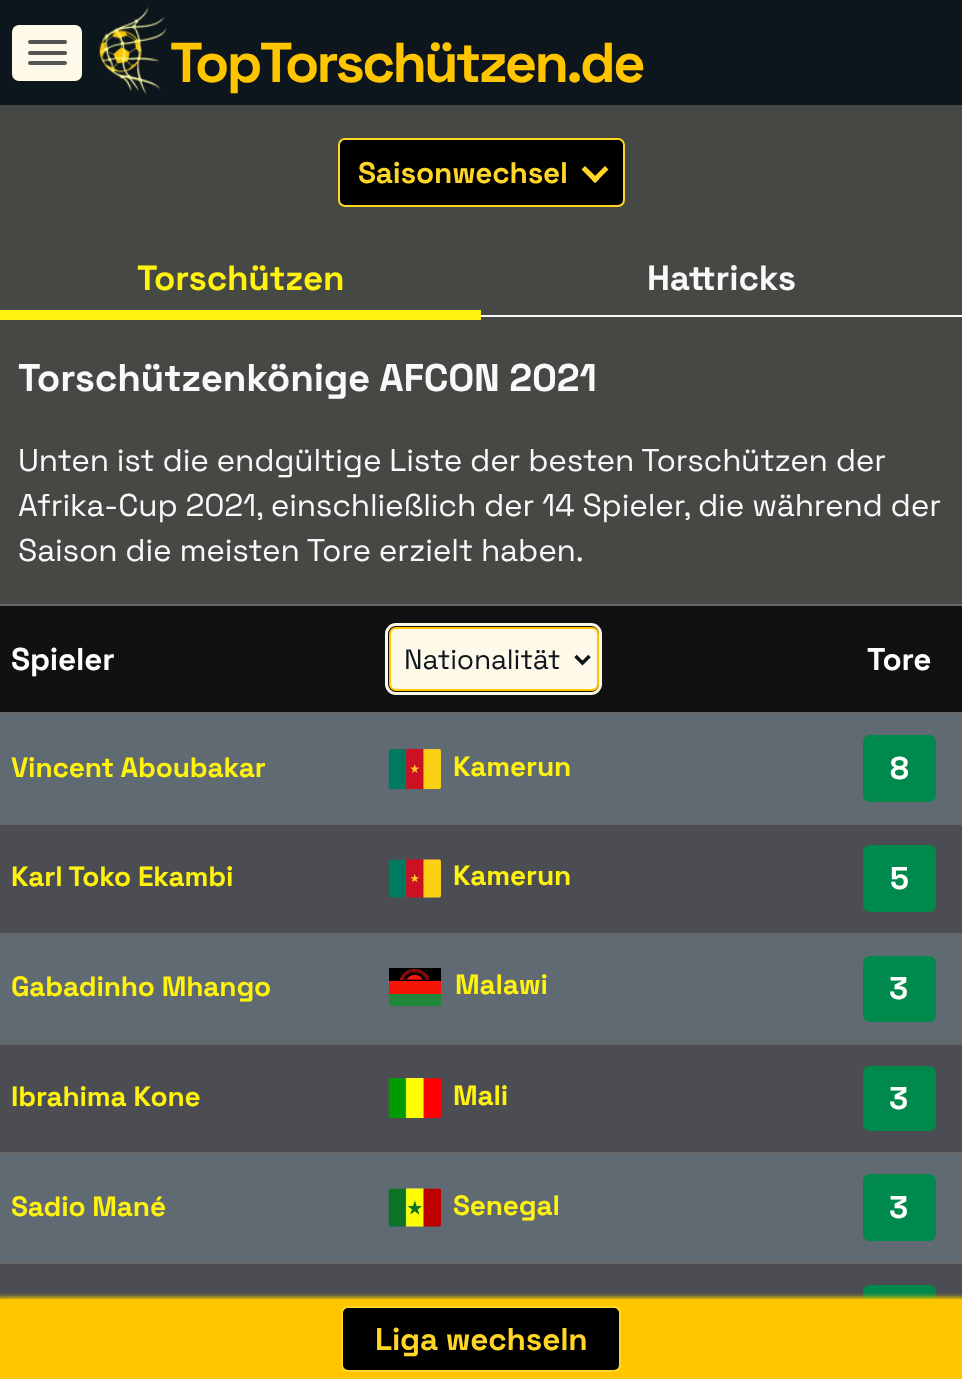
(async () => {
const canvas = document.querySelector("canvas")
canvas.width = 962
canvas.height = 1379
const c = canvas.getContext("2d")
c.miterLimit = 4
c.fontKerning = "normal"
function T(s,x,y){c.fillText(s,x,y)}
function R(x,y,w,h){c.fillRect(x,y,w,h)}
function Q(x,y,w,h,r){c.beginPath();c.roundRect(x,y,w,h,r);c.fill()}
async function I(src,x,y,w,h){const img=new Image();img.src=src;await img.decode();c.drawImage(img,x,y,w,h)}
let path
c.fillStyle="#464844"
R(0,0,962,1379)
c.fillStyle="#0d161d"
R(0,0,962,105)
c.fillStyle="#fff9ea"
Q(12,25,70,56,7)
c.fillStyle="#555"
Q(28,40,39,4,2)
Q(28,51,39,4,2)
Q(28,61,39,4,2)
await I("1.png",99,7,68,88)
c.letterSpacing="-2.6px"
c.font="bold 56px Space Grotesk"
c.fillStyle="#ffc600"
T("TopTorschützen.de",170,82)
c.fillStyle="#000"
c.beginPath()
c.roundRect(339,139,285,67,6)
c.fill()
c.strokeStyle="#ffd627"
c.lineWidth=2
c.stroke()
c.letterSpacing="-0.18px"
c.font="bold 29.75px Space Grotesk"
c.fillStyle="#ffd627"
T("Saisonwechsel",358,183)
path = new Path2D("M605 166l3.5 3.5l-13.5 13.5l-3.5-3.5z")
c.fill(path)
path = new Path2D("M585 166l14 13.5l-4 3.5l-13.5-13.5z")
c.fill(path)
c.fillStyle="#fff20e"
R(0,310,481,10)
c.font="bold 35px Space Grotesk"
T("Torschützen",137,290)
c.fillStyle="#f7f9fb"
R(481,315,481,2)
T("Hattricks",647,290)
c.font="bold 38.5px Space Grotesk"
T("Torschützenkönige AFCON 2021",18,391)
c.font="31.5px Space Grotesk"
T("Unten ist die endgültige Liste der besten Torschützen der",18,471)
T("Afrika-Cup 2021, einschließlich der 14 Spieler, die während der",18,516)
T("Saison die meisten Tore erzielt haben.",18,561)
c.fillStyle="#111"
R(0,606,962,106)
c.font="bold 31.5px Space Grotesk"
c.fillStyle="#fff"
T("Spieler",11,670)
c.beginPath()
c.roundRect(386.5,624.5,214,69,9.5)
c.strokeStyle="#fff9ea"
c.lineWidth=3
c.stroke()
c.fillStyle="#fff9ea"
c.beginPath()
c.roundRect(390,628,208,62,6)
c.fill()
c.strokeStyle="#ffc600"
c.lineWidth=2
c.stroke()
path = new Path2D("M575.5 656l7 7l7-7")
c.strokeStyle="#0d161d"
c.lineWidth=3.5
c.stroke(path)
c.font="28px Space Grotesk"
c.fillStyle="#0d161d"
T("Nationalität",404,669)
c.fillStyle="#666"
R(0,604,962,2)
c.font="bold 31.5px Space Grotesk"
c.fillStyle="#fff"
T("Tore",867,670)
c.fillStyle="#5f6a72"
R(0,714,962,109)
c.font="bold 28px Space Grotesk"
c.fillStyle="#fff20e"
T("Vincent Aboubakar",11,777)
await I("2.png",388,749,53,41)
T("Kamerun",453,776)
c.fillStyle="#666"
R(0,712,962,2)
c.fillStyle="#00894c"
Q(863,735,73,67,7)
c.font="bold 31.5px Space Grotesk"
c.fillStyle="#fff"
T("8",890,779)
c.fillStyle="#4b4d52"
R(0,825,962,108)
c.font="bold 28px Space Grotesk"
c.fillStyle="#fff20e"
T("Karl Toko Ekambi",11,886)
await I("3.png",388,859,53,39)
T("Kamerun",453,885)
c.fillStyle="#666"
R(0,823,962,2)
c.fillStyle="#00894c"
Q(863,845,73,67,7)
c.font="bold 31.5px Space Grotesk"
c.fillStyle="#fff"
T("5",890,889)
c.fillStyle="#5f6a72"
R(0,935,962,108)
c.font="bold 28px Space Grotesk"
c.fillStyle="#fff20e"
T("Gabadinho Mhango",11,996)
await I("4.png",389,968,52,38)
T("Malawi",455,994)
c.fillStyle="#666"
R(0,933,962,2)
c.fillStyle="#00894c"
Q(863,956,73,66,7)
c.font="bold 31.5px Space Grotesk"
c.fillStyle="#fff"
T("3",889,999)
c.fillStyle="#4b4d52"
R(0,1045,962,107)
c.font="bold 28px Space Grotesk"
c.fillStyle="#fff20e"
T("Ibrahima Kone",11,1106)
await I("5.png",388,1078,53,41)
T("Mali",453,1105)
c.fillStyle="#666"
R(0,1043,962,2)
c.fillStyle="#00894c"
Q(863,1066,73,65,7)
c.font="bold 31.5px Space Grotesk"
c.fillStyle="#fff"
T("3",889,1109)
c.fillStyle="#5f6a72"
R(0,1154,962,108)
c.font="bold 28px Space Grotesk"
c.fillStyle="#fff20e"
T("Sadio Mané",11,1216)
await I("6.png",388,1188,53,39)
T("Senegal",453,1215)
c.fillStyle="#666"
R(0,1152,962,2)
c.fillStyle="#00894c"
Q(863,1174,73,67,7)
c.font="bold 31.5px Space Grotesk"
c.fillStyle="#fff"
T("3",889,1218)
c.fillStyle="#666"
R(0,1262,962,2)
c.fillStyle="#4b4d52"
R(0,1264,962,35)
c.fillStyle="#00894c"
Q(863,1285,73,66,7)
await I("7.png",389,1298,51,1)
c.fillStyle="#e9c300"
c.filter="blur(2px)"
c.beginPath()
c.rect(-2,1297,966,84)
c.fill()
c.filter="none"
c.fillStyle="#ffc600"
R(0,1299,962,80)
c.fillStyle="#000"
c.beginPath()
c.roundRect(342,1307,278,64,6)
c.fill()
c.strokeStyle="#ffd627"
c.lineWidth=2
c.stroke()
c.fillStyle="#ffd627"
T("Liga wechseln",375,1350)
})()
